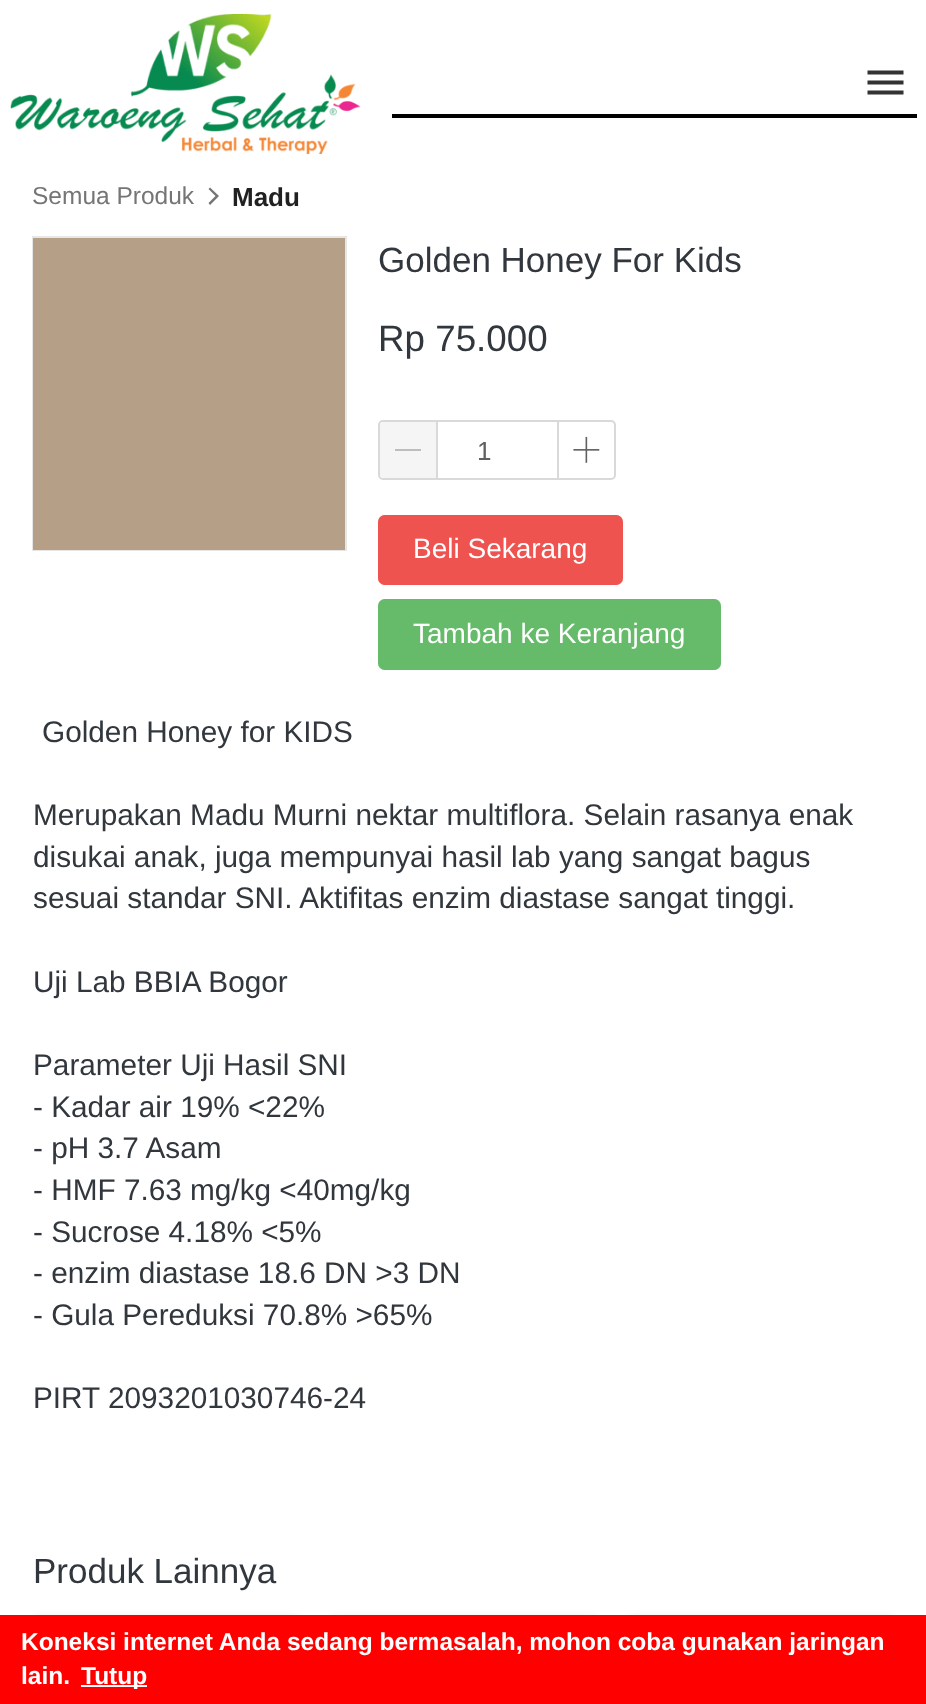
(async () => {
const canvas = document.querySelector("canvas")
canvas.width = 926
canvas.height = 1704
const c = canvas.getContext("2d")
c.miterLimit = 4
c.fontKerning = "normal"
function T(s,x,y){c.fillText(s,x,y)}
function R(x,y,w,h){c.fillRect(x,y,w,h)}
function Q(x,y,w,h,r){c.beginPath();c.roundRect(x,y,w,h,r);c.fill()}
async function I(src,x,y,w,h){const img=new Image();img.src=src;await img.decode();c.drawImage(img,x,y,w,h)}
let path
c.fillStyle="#fff"
R(0,0,926,1704)
await I("1.png",10,14,351,140)
c.fillStyle="#333"
path = new Path2D("M867.5 94.5h36v-4h-36zm0-10h36v-4h-36zm0-14v4h36v-4z")
c.fill(path)
c.fillStyle="#000"
R(392,114,525,4)
c.font="24.5px Liberation Sans"
c.fillStyle="#757575"
T("Semua Produk",32,204)
path = new Path2D("M215.5 196l-7 7l1.5 2l9-9l-9-8.5l-1.5 1.5z")
c.fill(path)
c.font="bold 26px Liberation Sans"
c.fillStyle="#212121"
T("Madu",232,206)
c.strokeStyle="#e6e6e6"
c.lineWidth=2
c.strokeRect(33,237,313,313)
c.fillStyle="#b59f86"
R(33,238,312,312)
c.font="35px Liberation Sans"
c.fillStyle="#31373d"
T("Golden Honey For Kids",378,272)
c.font="36.75px Liberation Sans"
T("Rp 75.000",378,351)
c.beginPath()
c.roundRect(379,421,236,58,4)
c.strokeStyle="#d9d9d9"
c.stroke()
c.fillStyle="#f5f5f5"
c.beginPath()
c.roundRect(380,422,56,56,[4,0,0,4])
c.fill()
c.fillStyle="#bdbdbd"
R(395,449,26,2)
c.fillStyle="#d9d9d9"
R(557,422,2,56)
R(436,422,2,56)
c.font="26px Liberation Sans"
c.fillStyle="#616161"
T("1",477,460)
await I("2.png",573,436,27,27)
c.fillStyle="#ef5350"
Q(378,515,245,70,7)
c.beginPath()
c.roundRect(379,516,243,68,6)
c.strokeStyle="#ef535080"
c.stroke()
c.font="28px Liberation Sans"
c.fillStyle="#fff"
T("Beli Sekarang",413,558)
c.fillStyle="#66bb6a"
Q(378,599,343,71,7)
c.beginPath()
c.roundRect(379,600,341,69,6)
c.strokeStyle="#66bb6a80"
c.stroke()
c.fillStyle="#fff"
T("Tambah ke Keranjang",413,643)
c.font="29.75px Liberation Sans"
c.fillStyle="#31373d"
T("Golden Honey for KIDS",42,742)
T("Merupakan Madu Murni nektar multiflora. Selain rasanya enak",33,825)
T("disukai anak, juga mempunyai hasil lab yang sangat bagus",33,867)
T("sesuai standar SNI. Aktifitas enzim diastase sangat tinggi.",33,908)
T("Uji Lab BBIA Bogor",33,992)
T("Parameter Uji Hasil SNI",33,1075)
T("- Kadar air 19% <22%",33,1117)
T("- pH 3.7 Asam",33,1158)
T("- HMF 7.63 mg/kg <40mg/kg",33,1200)
T("- Sucrose 4.18% <5%",33,1242)
T("- enzim diastase 18.6 DN >3 DN",33,1283)
T("- Gula Pereduksi 70.8% >65%",33,1325)
T("PIRT 2093201030746-24",33,1408)
c.font="35px Liberation Sans"
T("Produk Lainnya",33,1583)
c.fillStyle="#0000001a"
c.filter="blur(3.5px)"
c.beginPath()
c.roundRect(32,1617,269,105,7)
c.fill()
c.filter="none"
c.filter="blur(3.5px)"
c.beginPath()
c.roundRect(329,1617,270,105,7)
c.fill()
c.filter="none"
c.filter="blur(3.5px)"
c.beginPath()
c.roundRect(627,1617,269,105,7)
c.fill()
c.filter="none"
c.fillStyle="#f00"
R(0,1615,926,89)
c.font="bold 24.5px Liberation Sans"
c.fillStyle="#fff"
T("Koneksi internet Anda sedang bermasalah, mohon coba gunakan jaringan",21,1650)
T("lain.",21,1684)
R(81,1685,66,2)
T("Tutup",81,1684)
})()
